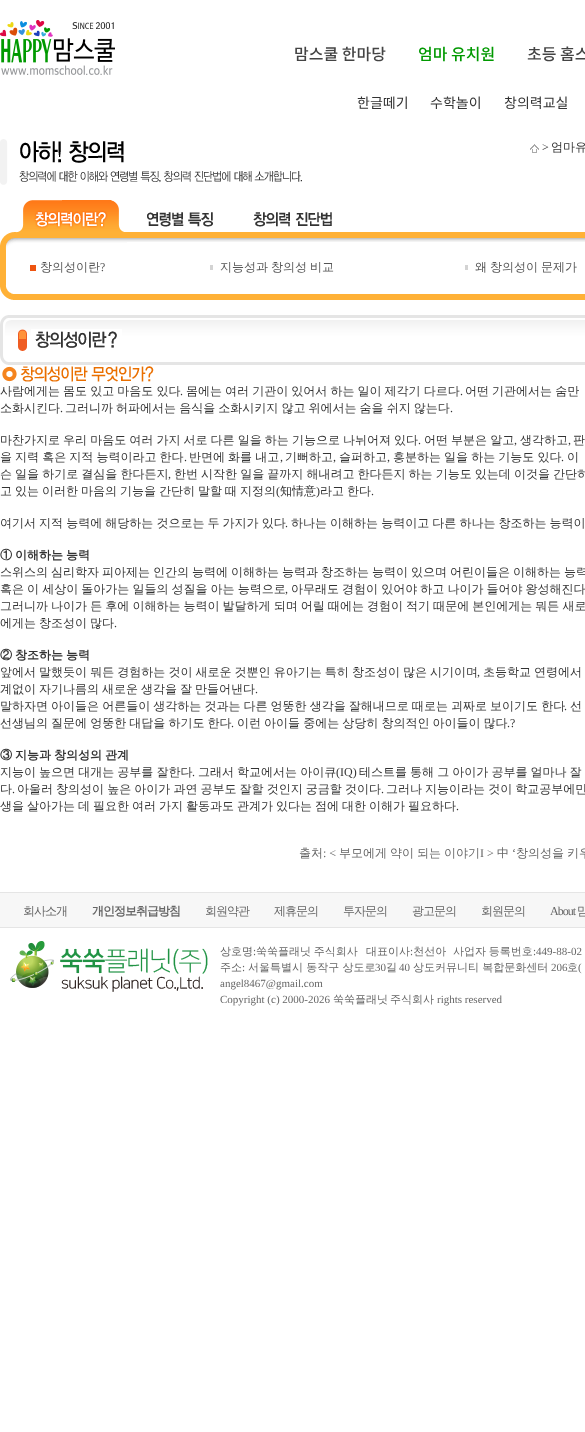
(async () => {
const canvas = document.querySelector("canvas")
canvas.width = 585
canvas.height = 1432
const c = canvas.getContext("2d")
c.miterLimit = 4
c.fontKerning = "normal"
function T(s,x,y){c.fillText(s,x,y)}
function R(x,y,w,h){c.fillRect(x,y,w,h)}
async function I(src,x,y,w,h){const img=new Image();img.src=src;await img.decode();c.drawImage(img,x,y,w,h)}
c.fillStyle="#fff"
R(0,0,585,1432)
await I("1.png",0,20,115,55)
c.font="500 16px Noto Sans KR"
c.fillStyle="#444"
T("맘스쿨 한마당",294,60)
c.fillStyle="#090"
T("엄마 유치원",418,60)
c.font="14px Noto Sans KR"
c.fillStyle="#333"
T("한글떼기",357,108)
T("수학놀이",430,108)
T("창의력교실",504,108)
c.font="500 16px Noto Sans KR"
c.fillStyle="#444"
T("초등 홈스",527,60)
await I("2.png",0,139,302,46)
await I("3.png",530,144,9,9)
c.font="12px Liberation Serif"
c.fillStyle="#333"
T(">",542,151)
c.font="500 12px WenQuanYi Zen Hei"
T("엄마유",551,151)
await I("4.png",0,200,127,50)
await I("5.png",127,212,106,30)
await I("6.png",233,212,116,30)
await I("7.png",349,232,236,10)
c.fillStyle="#ffb136"
R(0,250,6,35)
c.fillStyle="#ee5410"
R(30,265,6,6)
c.fillStyle="#555"
T("창의성이란",40,271)
c.font="12px Liberation Serif"
T("?",100,271)
c.fillStyle="#d3d3d3"
R(210,265,3,5)
c.wordSpacing="-0.6px"
c.font="500 12px WenQuanYi Zen Hei"
c.fillStyle="#555"
T("지능성과 창의성 비교",220,271)
c.fillStyle="#d3d3d3"
R(465,265,3,5)
c.fillStyle="#555"
T("왜 창의성이 문제가",475,271)
await I("8.png",0,285,585,15)
await I("9.png",0,315,31,50)
await I("10.png",31,315,554,50)
await I("11.png",31,329,91,19)
await I("12.png",2,366,152,16)
c.wordSpacing="-0.5px"
c.fillStyle="#333"
T("사람에게는 몸도 있고 마음도 있다",0,395)
c.wordSpacing="0px"
c.font="12px Liberation Serif"
T(".",180,395)
c.wordSpacing="-0.5px"
c.font="500 12px WenQuanYi Zen Hei"
T("몸에는 여러 기관이 있어서 하는 일이 제각기 다르다",186,395)
c.wordSpacing="0px"
c.font="12px Liberation Serif"
T(".",460,395)
c.wordSpacing="-0.5px"
c.font="500 12px WenQuanYi Zen Hei"
T("어떤 기관에서는 숨만",465,395)
c.wordSpacing="0px"
T("소화시킨다",0,412)
c.font="12px Liberation Serif"
T(".",60,412)
c.wordSpacing="-0.5px"
c.font="500 12px WenQuanYi Zen Hei"
T("그러니까 허파에서는 음식을 소화시키지 않고 위에서는 숨을 쉬지 않는다",65,412)
c.wordSpacing="0px"
c.font="12px Liberation Serif"
T(".",450,412)
c.wordSpacing="-0.5px"
c.font="500 12px WenQuanYi Zen Hei"
T("마찬가지로 우리 마음도 여러 가지 서로 다른 일을 하는 기능으로 나뉘어져 있다",0,444)
c.wordSpacing="0px"
c.font="12px Liberation Serif"
T(".",418,444)
c.wordSpacing="-0.5px"
c.font="500 12px WenQuanYi Zen Hei"
T("어떤 부분은 알고",424,444)
c.wordSpacing="0px"
c.font="12px Liberation Serif"
T(",",514,444)
c.font="500 12px WenQuanYi Zen Hei"
T("생각하고",520,444)
c.font="12px Liberation Serif"
T(",",568,444)
c.wordSpacing="-0.5px"
c.font="500 12px WenQuanYi Zen Hei"
T("판",573,444)
T("을 지력 혹은 지적 능력이라고 한다",0,461)
c.wordSpacing="0px"
c.font="12px Liberation Serif"
T(".",184,461)
c.wordSpacing="-0.5px"
c.font="500 12px WenQuanYi Zen Hei"
T("반면에 화를 내고",189,461)
c.wordSpacing="0px"
c.font="12px Liberation Serif"
T(",",280,461)
c.font="500 12px WenQuanYi Zen Hei"
T("기뻐하고",285,461)
c.font="12px Liberation Serif"
T(",",333,461)
c.font="500 12px WenQuanYi Zen Hei"
T("슬퍼하고",339,461)
c.font="12px Liberation Serif"
T(",",387,461)
c.wordSpacing="-0.5px"
c.font="500 12px WenQuanYi Zen Hei"
T("흥분하는 일을 하는 기능도 있다",393,461)
c.wordSpacing="0px"
c.font="12px Liberation Serif"
T(".",561,461)
c.wordSpacing="-0.5px"
c.font="500 12px WenQuanYi Zen Hei"
T("이",567,461)
T("슨 일을 하기로 결심을 한다든지",0,478)
c.wordSpacing="0px"
c.font="12px Liberation Serif"
T(",",168,478)
c.wordSpacing="-0.5px"
c.font="500 12px WenQuanYi Zen Hei"
T("한번 시작한 일을 끝까지 해내려고 한다든지 하는 기능도 있는데 이것을 간단히",174,478)
c.wordSpacing="-0.6px"
T("고 있는 이러한 마음의 기능을 간단히 말할 때 지정의",0,495)
c.wordSpacing="0px"
c.font="12px Liberation Serif"
T("(",276,495)
c.font="500 12px WenQuanYi Zen Hei"
T("知情意",280,495)
c.font="12px Liberation Serif"
T(")",316,495)
c.wordSpacing="-0.6px"
c.font="500 12px WenQuanYi Zen Hei"
T("라고 한다",320,495)
c.wordSpacing="0px"
c.font="12px Liberation Serif"
T(".",371,495)
c.wordSpacing="-0.5px"
c.font="500 12px WenQuanYi Zen Hei"
T("여기서 지적 능력에 해당하는 것으로는 두 가지가 있다",0,527)
c.wordSpacing="0px"
c.font="12px Liberation Serif"
T(".",285,527)
c.wordSpacing="-0.5px"
c.font="500 12px WenQuanYi Zen Hei"
T("하나는 이해하는 능력이고 다른 하나는 창조하는 능력이",291,527)
c.wordSpacing="-0.6px"
c.font="bold 12px WenQuanYi Zen Hei"
T("① 이해하는 능력",0,559)
c.font="500 12px WenQuanYi Zen Hei"
T("스위스의 심리학자 피아제는 인간의 능력에 이해하는 능력과 창조하는 능력이 있으며 어린이들은 이해하는 능력",0,576)
c.wordSpacing="-0.5px"
T("혹은 이 세상이 돌아가는 일들의 성질을 아는 능력으로",0,593)
c.wordSpacing="0px"
c.font="12px Liberation Serif"
T(",",285,593)
c.wordSpacing="-0.5px"
c.font="500 12px WenQuanYi Zen Hei"
T("아무래도 경험이 있어야 하고 나이가 들어야 왕성해진다",291,593)
T("그러니까 나이가 든 후에 이해하는 능력이 발달하게 되며 어릴 때에는 경험이 적기 때문에 본인에게는 뭐든 새로",0,610)
c.wordSpacing="-0.6px"
T("에게는 창조성이 많다",0,627)
c.wordSpacing="0px"
c.font="12px Liberation Serif"
T(".",114,627)
c.wordSpacing="-0.6px"
c.font="bold 12px WenQuanYi Zen Hei"
T("② 창조하는 능력",0,659)
c.wordSpacing="-0.5px"
c.font="500 12px WenQuanYi Zen Hei"
T("앞에서 말했듯이 뭐든 경험하는 것이 새로운 것뿐인 유아기는 특히 창조성이 많은 시기이며",0,676)
c.wordSpacing="0px"
c.font="12px Liberation Serif"
T(",",477,676)
c.wordSpacing="-0.5px"
c.font="500 12px WenQuanYi Zen Hei"
T("초등학교 연령에서",483,676)
c.wordSpacing="-0.6px"
T("계없이 자기나름의 새로운 생각을 잘 만들어낸다",0,693)
c.wordSpacing="0px"
c.font="12px Liberation Serif"
T(".",255,693)
c.wordSpacing="-0.5px"
c.font="500 12px WenQuanYi Zen Hei"
T("말하자면 아이들은 어른들이 생각하는 것과는 다른 엉뚱한 생각을 잘해내므로 때로는 괴짜로 보이기도 한다",0,710)
c.wordSpacing="0px"
c.font="12px Liberation Serif"
T(".",564,710)
c.wordSpacing="-0.5px"
c.font="500 12px WenQuanYi Zen Hei"
T("선",570,710)
T("선생님의 질문에 엉뚱한 대답을 하기도 한다",0,727)
c.wordSpacing="0px"
c.font="12px Liberation Serif"
T(".",231,727)
c.wordSpacing="-0.5px"
c.font="500 12px WenQuanYi Zen Hei"
T("이런 아이들 중에는 상당히 창의적인 아이들이 많다",237,727)
c.wordSpacing="0px"
c.font="12px Liberation Serif"
T(".?",507,727)
c.wordSpacing="-0.6px"
c.font="bold 12px WenQuanYi Zen Hei"
T("③ 지능과 창의성의 관계",0,759)
c.wordSpacing="-0.5px"
c.font="500 12px WenQuanYi Zen Hei"
T("지능이 높으면 대개는 공부를 잘한다",0,776)
c.wordSpacing="0px"
c.font="12px Liberation Serif"
T(".",192,776)
c.wordSpacing="-0.5px"
c.font="500 12px WenQuanYi Zen Hei"
T("그래서 학교에서는 아이큐",198,776)
c.wordSpacing="0px"
c.font="12px Liberation Serif"
T("(IQ)",336,776)
c.wordSpacing="-0.5px"
c.font="500 12px WenQuanYi Zen Hei"
T("테스트를 통해 그 아이가 공부를 얼마나 잘",359,776)
c.wordSpacing="0px"
T("다",0,793)
c.font="12px Liberation Serif"
T(".",12,793)
c.wordSpacing="-0.5px"
c.font="500 12px WenQuanYi Zen Hei"
T("아울러 창의성이 높은 아이가 과연 공부도 잘할 것인지 궁금할 것이다",17,793)
c.wordSpacing="0px"
c.font="12px Liberation Serif"
T(".",381,793)
c.wordSpacing="-0.5px"
c.font="500 12px WenQuanYi Zen Hei"
T("그러나 지능이라는 것이 학교공부에만",386,793)
c.wordSpacing="-0.6px"
T("생을 살아가는 데 필요한 여러 가지 활동과도 관계가 있다는 점에 대한 이해가 필요하다",0,810)
c.wordSpacing="0px"
c.font="12px Liberation Serif"
T(".",456,810)
c.font="500 12px WenQuanYi Zen Hei"
c.fillStyle="#666"
T("출처",299,857)
c.font="12px Liberation Serif"
T(": <",323,857)
c.font="500 12px WenQuanYi Zen Hei"
T("부모에게",339,857)
T("약이",390,857)
T("되는",417,857)
T("이야기",444,857)
c.font="12px Liberation Serif"
T("I >",480,857)
c.font="500 12px WenQuanYi Zen Hei"
T("中",497,857)
c.font="12px Liberation Serif"
T("‘",512,857)
c.font="500 12px WenQuanYi Zen Hei"
T("창의성을",516,857)
T("키우",567,857)
c.fillStyle="#f7f7f7"
R(0,893,585,34)
c.fillStyle="#e5e5e5"
R(0,892,585,1)
R(0,927,585,1)
c.letterSpacing="-1px"
c.fillStyle="#666"
T("회사소개",23,915)
c.font="bold 12px WenQuanYi Zen Hei"
T("개인정보취급방침",92,915)
c.font="500 12px WenQuanYi Zen Hei"
T("회원약관",205,915)
T("제휴문의",274,915)
T("투자문의",343,915)
T("광고문의",412,915)
T("회원문의",481,915)
c.font="12px Liberation Serif"
T("About",550,915)
c.font="500 12px WenQuanYi Zen Hei"
T("맘",577,915)
await I("13.png",10,941,198,51)
c.letterSpacing="0px"
c.font="500 11px WenQuanYi Zen Hei"
T("상호명",220,955)
c.font="11px Liberation Serif"
T(":",253,955)
c.wordSpacing="-0.5px"
c.font="500 11px WenQuanYi Zen Hei"
T("쑥쑥플래닛 주식회사",256,955)
c.wordSpacing="0px"
T("대표이사 천선아",366,955)
c.wordSpacing="-0.5px"
T("사업자 등록번호",453,955)
c.wordSpacing="0px"
c.font="11px Liberation Serif"
T(":449-88-02",533,955)
T(":",410,955)
c.font="500 11px WenQuanYi Zen Hei"
T("주소",220,971)
c.font="11px Liberation Serif"
T(":",242,971)
c.font="500 11px WenQuanYi Zen Hei"
T("서울특별시 동작구 상도로",248,971)
c.font="11px Liberation Serif"
T("30",375,971)
c.font="500 11px WenQuanYi Zen Hei"
T("길",386,971)
c.font="11px Liberation Serif"
T("40",399,971)
c.font="500 11px WenQuanYi Zen Hei"
T("상도커뮤니티 복합문화센터",413,971)
c.font="11px Liberation Serif"
T("206",551,971)
c.font="500 11px WenQuanYi Zen Hei"
T("호",567,971)
c.font="11px Liberation Serif"
T("(",578,971)
T("angel8467@gmail.com",220,987)
T("Copyright (c) 2000-2026",220,1003)
c.font="500 11px WenQuanYi Zen Hei"
T("쑥쑥플래닛",333,1003)
T("주식회사",390,1003)
c.font="11px Liberation Serif"
T("rights reserved",437,1003)
})()
